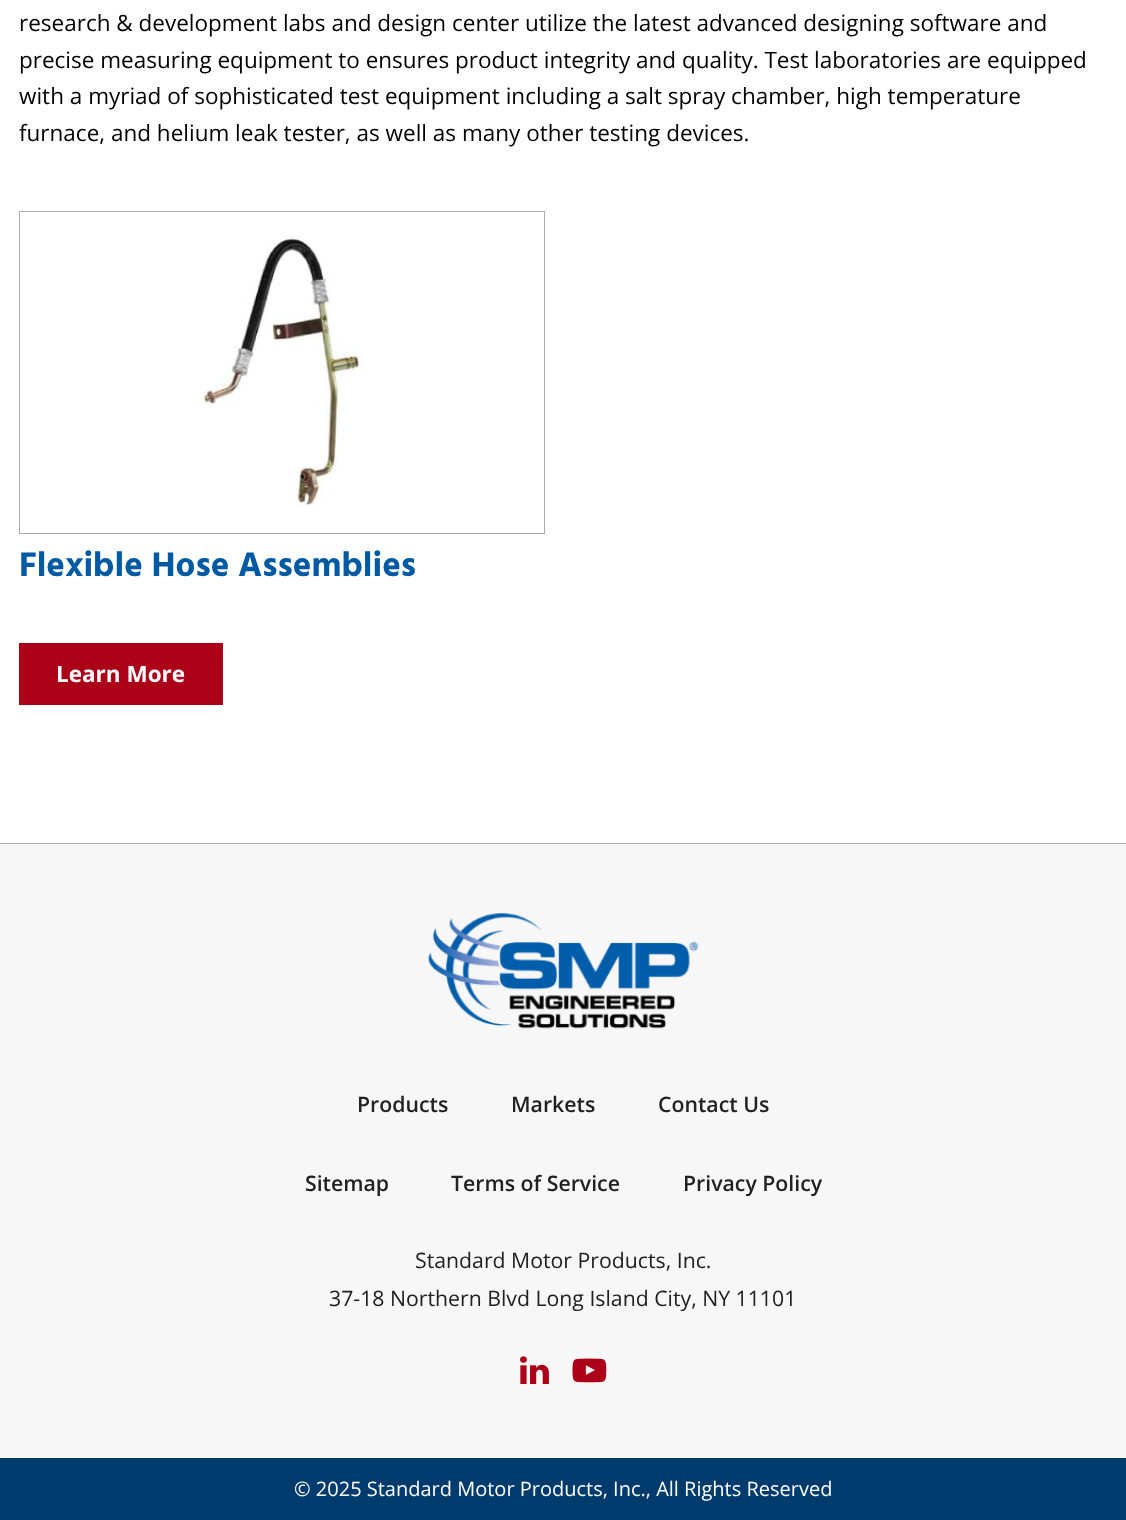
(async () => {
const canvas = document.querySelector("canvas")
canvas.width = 1126
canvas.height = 1520
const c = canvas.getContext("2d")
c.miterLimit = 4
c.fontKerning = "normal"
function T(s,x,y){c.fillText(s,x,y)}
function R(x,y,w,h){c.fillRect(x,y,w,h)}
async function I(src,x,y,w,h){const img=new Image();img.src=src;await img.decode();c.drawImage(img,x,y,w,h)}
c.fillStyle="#fff"
R(0,0,1126,1520)
c.font="22.5px Open Sans"
c.fillStyle="#000"
T("research & development labs and design center utilize the latest advanced designing software and",19,31)
T("precise measuring equipment to ensures product integrity and quality. Test laboratories are equipped",19,68)
T("with a myriad of sophisticated test equipment including a salt spray chamber, high temperature",19,104)
T("furnace, and helium leak tester, as well as many other testing devices.",19,141)
c.strokeStyle="#acacac"
c.strokeRect(19.5,211.5,525,322)
await I("1.png",198,236,165,271)
c.font="bold 35px Hind"
c.fillStyle="#0059a3"
T("Flexible Hose Assemblies",19,576)
c.fillStyle="#ab0018"
R(19,643,204,62)
c.font="bold 22.5px Open Sans"
c.fillStyle="#fff"
T("Learn More",56,682)
c.fillStyle="#f7f7f7"
R(0,844,1126,614)
c.fillStyle="#acacac"
R(0,843,1126,1)
await I("2.png",428,913,270,116)
c.font="600 21.25px Open Sans"
c.fillStyle="#212121"
T("Products",357,1112)
T("Markets",511,1112)
T("Contact Us",658,1112)
T("Sitemap",305,1191)
T("Terms of Service",451,1191)
T("Privacy Policy",683,1191)
c.font="21.25px Open Sans"
T("Standard Motor Products, Inc.",415,1268)
T("37-18 Northern Blvd Long Island City, NY 11101",329,1306)
await I("3.png",520,1356,29,28)
await I("4.png",572,1358,35,25)
c.fillStyle="#003b6d"
R(0,1458,1126,62)
c.font="20px Open Sans"
c.fillStyle="#fff"
T("© 2025 Standard Motor Products, Inc., All Rights Reserved",294,1496)
})()
